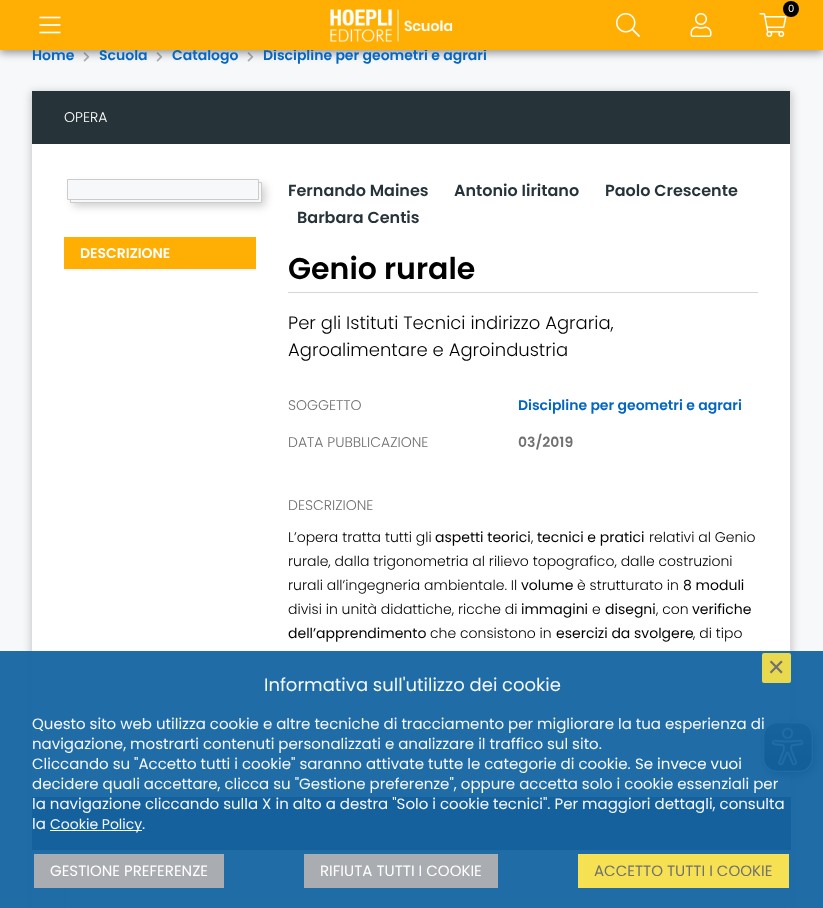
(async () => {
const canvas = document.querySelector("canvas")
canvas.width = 823
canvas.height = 908
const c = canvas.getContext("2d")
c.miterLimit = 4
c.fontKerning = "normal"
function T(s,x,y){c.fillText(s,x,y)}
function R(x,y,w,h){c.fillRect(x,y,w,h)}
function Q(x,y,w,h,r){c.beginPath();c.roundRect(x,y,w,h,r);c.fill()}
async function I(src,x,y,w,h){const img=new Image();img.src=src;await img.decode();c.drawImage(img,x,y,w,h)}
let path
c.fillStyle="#f7f8f9"
R(0,0,823,908)
await I("6.png",83,52,7,10)
await I("6.png",156,52,7,10)
await I("6.png",247,52,7,10)
c.fillStyle="#00000066"
c.filter="blur(4px)"
c.beginPath()
c.rect(0,3,823,50)
c.fill()
c.filter="none"
c.font="600 14px Poppins"
c.fillStyle="#0466c1"
T("Scuola",99,60)
T("Catalogo",172,60)
T("Discipline per geometri e agrari",263,60)
c.fillStyle="#ffaf04"
R(0,0,823,50)
await I("1.png",759,13,28,24)
c.fillStyle="#000"
c.beginPath()
c.arc(791,9,8,0,7)
c.fill()
c.font="10px Poppins"
c.fillStyle="#fff"
T("0",788,12)
await I("2.png",616,13,24,24)
await I("3.png",690,13,22,24)
await I("4.png",39,16,22,18)
await I("5.png",330,9,123,33)
c.font="600 14px Poppins"
c.fillStyle="#0466c1"
T("Home",32,60)
c.fillStyle="#00000033"
c.filter="blur(4px)"
c.beginPath()
c.rect(31,92,761,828)
c.fill()
c.filter="none"
c.fillStyle="#fff"
R(32,144,758,653)
c.fillStyle="#ddd"
R(790,91,1,706)
c.fillStyle="#263339"
R(32,91,758,53)
c.font="300 14px Poppins"
c.fillStyle="#fff"
T("OPERA",64,122)
c.fillStyle="#00000033"
c.filter="blur(4px)"
c.beginPath()
c.rect(73,185,192,21)
c.fill()
c.filter="none"
c.fillStyle="#f7f8f9"
c.beginPath()
c.rect(70.5,182.5,191,20)
c.fill()
c.strokeStyle="#ccc"
c.stroke()
c.beginPath()
c.rect(67.5,179.5,191,20)
c.fill()
c.stroke()
R(64,269,192,2)
c.fillStyle="#ffaf04"
R(64,237,192,32)
c.font="600 14px Poppins"
c.fillStyle="#fff"
T("DESCRIZIONE",80,258)
c.font="600 16px Poppins"
c.fillStyle="#263339"
T("Fernando Maines",288,196)
T("Antonio Iiritano",454,196)
T("Paolo Crescente",605,196)
T("Barbara Centis",297,223)
c.fillStyle="#d6d6d6"
R(288,292,470,1)
c.font="600 30px Poppins"
c.fillStyle="#000"
T("Genio rurale",288,279)
c.font="300 18px Poppins"
T("Per gli Istituti Tecnici indirizzo Agraria,",288,329)
T("Agroalimentare e Agroindustria",288,356)
c.font="300 14px Poppins"
c.fillStyle="#707070"
T("SOGGETTO",288,410)
c.font="600 14px Poppins"
c.fillStyle="#0466c1"
T("Discipline per geometri e agrari",518,410)
c.font="300 14px Poppins"
c.fillStyle="#707070"
T("DATA PUBBLICAZIONE",288,447)
c.font="600 14px Poppins"
T("03/2019",518,447)
c.font="300 14px Poppins"
T("DESCRIZIONE",288,510)
c.fillStyle="#000"
T("L’opera tratta tutti gli",288,542)
c.font="14px Poppins"
T("aspetti teorici",435,542)
c.font="300 14px Poppins"
T(",",531,542)
c.font="14px Poppins"
T("tecnici e pratici",537,542)
c.font="300 14px Poppins"
T("relativi al Genio",649,542)
T("rurale, dalla trigonometria al rilievo topografico, dalle costruzioni",288,566)
T("rurali all’ingegneria ambientale. Il",288,590)
c.font="14px Poppins"
T("volume",521,590)
c.font="300 14px Poppins"
T("è strutturato in",577,590)
c.font="14px Poppins"
T("8 moduli",683,590)
c.font="300 14px Poppins"
T("divisi in unità didattiche, ricche di",288,614)
c.font="14px Poppins"
T("immagini",521,614)
c.font="300 14px Poppins"
T("e",592,614)
c.font="14px Poppins"
T("disegni",605,614)
c.font="300 14px Poppins"
T(", con",656,614)
c.font="14px Poppins"
T("verifiche",692,614)
T("dell’apprendimento",288,638)
c.font="300 14px Poppins"
T("che consistono in",430,638)
c.font="14px Poppins"
T("esercizi da svolgere",556,638)
c.font="300 14px Poppins"
T(", di tipo",693,638)
c.fillStyle="#fff"
R(32,850,759,58)
c.fillStyle="#263339"
R(32,797,759,53)
c.save()
path = new Path2D("M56 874h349v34h-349zm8 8h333v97h-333z")
c.clip(path,"evenodd")
c.fillStyle="#0000001a"
c.filter="blur(2px)"
c.beginPath()
c.rect(63,881,335,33)
c.fill()
c.filter="none"
c.restore()
c.strokeStyle="#ddd"
c.strokeRect(64.5,882.5,332,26)
await I("7.png",757,717,66,66)
c.fillStyle="#1464a2f2"
R(0,651,823,257)
c.fillStyle="#e9d94e"
Q(762,653,29,30,2)
c.font="22px DejaVu Sans"
c.fillStyle="#707070"
T("✕",767,675)
c.font="18px Poppins"
c.fillStyle="#f4f8fa"
T("Informativa sull'utilizzo dei cookie",264,691)
c.font="15px Poppins"
T("Questo sito web utilizza cookie e altre tecniche di tracciamento per migliorare la tua esperienza di",32,729)
T("navigazione, mostrarti contenuti personalizzati e analizzare il traffico sul sito.",32,749)
T("Cliccando su \"Accetto tutti i cookie\" saranno attivate tutte le categorie di cookie.",32,769)
c.fillStyle="#fff"
T("Se invece vuoi",635,769)
c.fillStyle="#f4f8fa"
T("decidere quali accettare, clicca su \"Gestione preferenze\", oppure accetta solo i cookie essenziali per",32,789)
T("la navigazione cliccando sulla X in alto a destra \"Solo i cookie tecnici\". Per maggiori dettagli, consulta",32,809)
T("la",32,829)
c.fillStyle="#f4f5f5"
R(50,830,92,1)
c.font="14px Poppins"
c.fillStyle="#f4f8fa"
T("Cookie Policy",50,829)
c.font="15px Poppins"
T(".",142,829)
c.fillStyle="#a9acb0"
R(34,854,190,34)
c.fillStyle="#fff"
T("GESTIONE PREFERENZE",50,876)
c.fillStyle="#a9acb0"
R(304,854,194,34)
c.fillStyle="#fff"
T("RIFIUTA TUTTI I COOKIE",320,876)
c.fillStyle="#f5e152"
R(578,854,211,34)
c.fillStyle="#707070"
T("ACCETTO TUTTI I COOKIE",594,876)
})()
